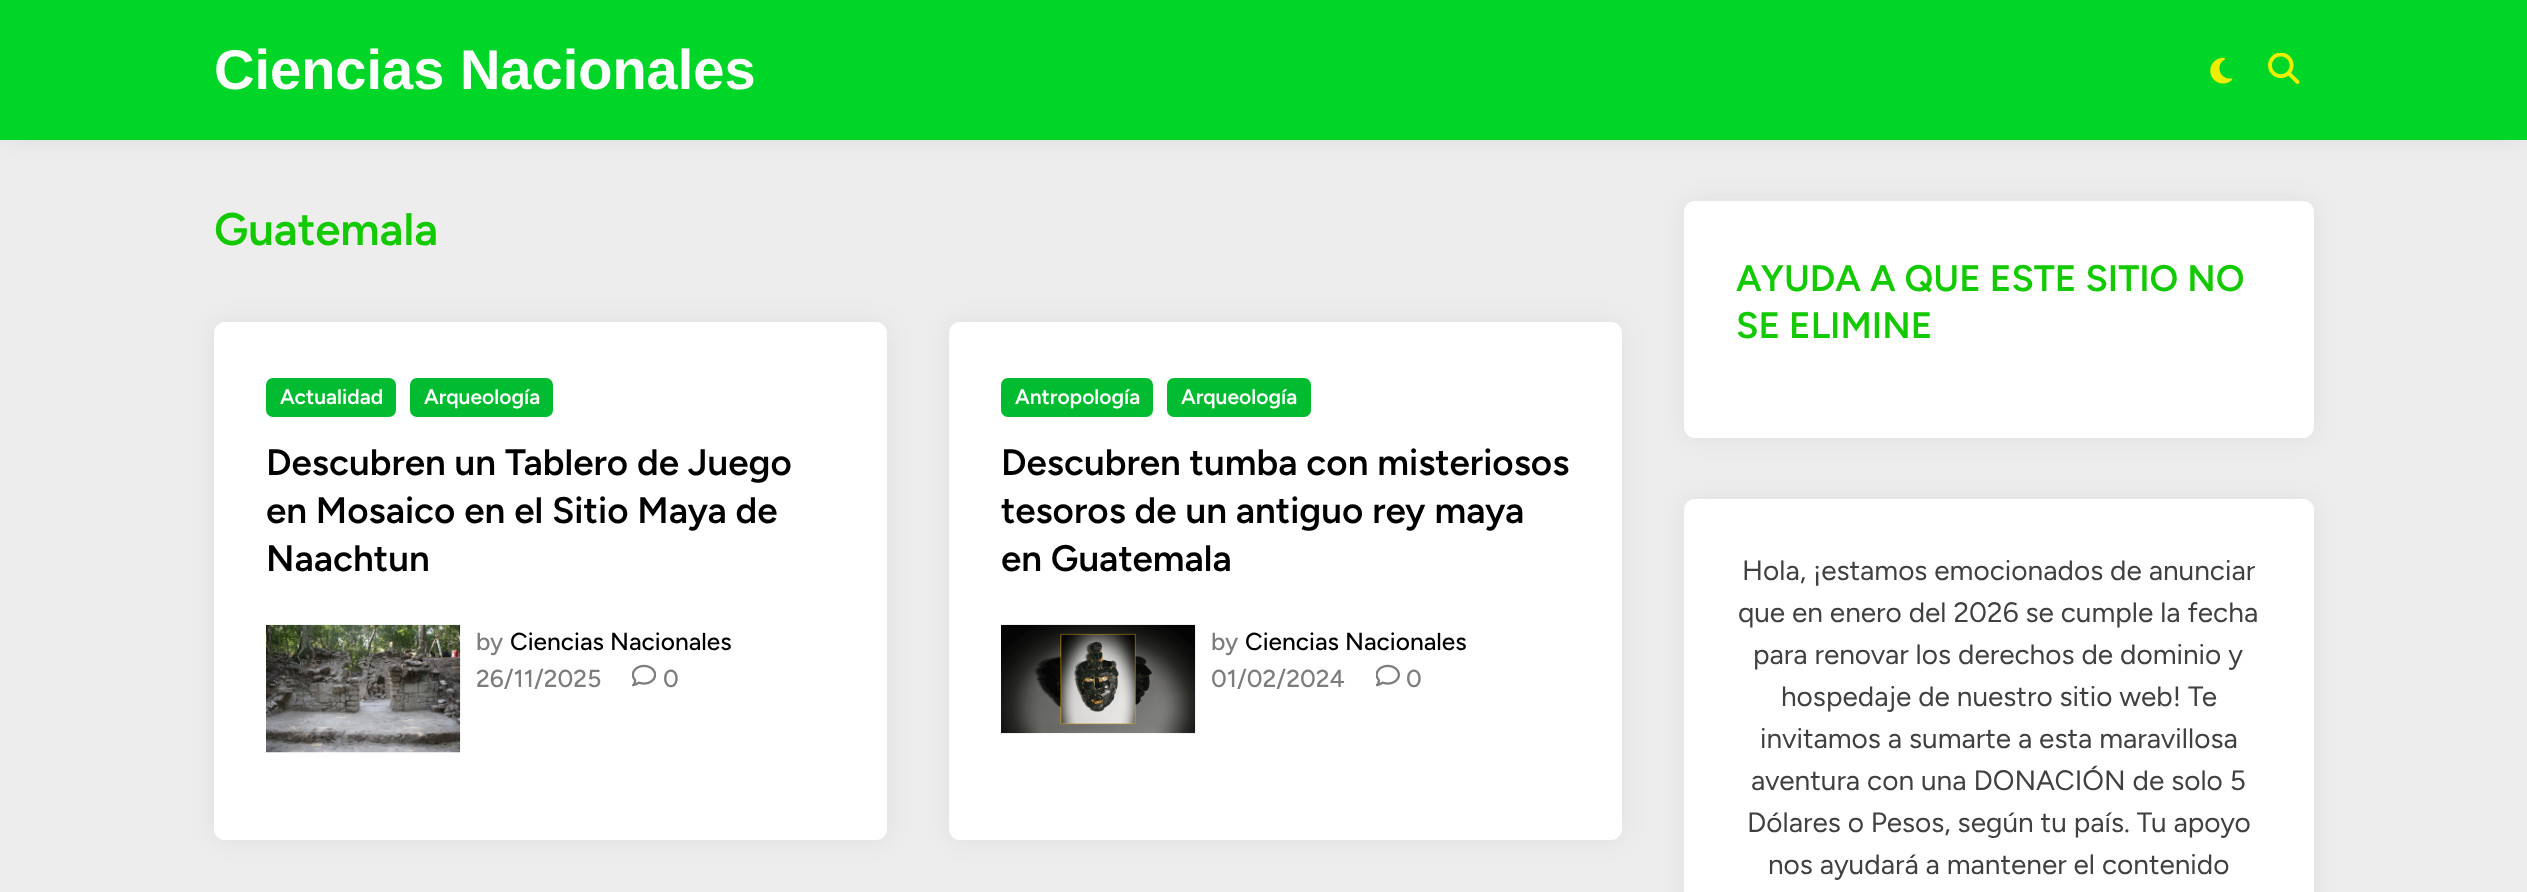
(async () => {
const canvas = document.querySelector("canvas")
canvas.width = 2527
canvas.height = 892
const c = canvas.getContext("2d")
c.miterLimit = 4
c.fontKerning = "normal"
function T(s,x,y){c.fillText(s,x,y)}
function R(x,y,w,h){c.fillRect(x,y,w,h)}
function Q(x,y,w,h,r){c.beginPath();c.roundRect(x,y,w,h,r);c.fill()}
async function I(src,x,y,w,h){const img=new Image();img.src=src;await img.decode();c.drawImage(img,x,y,w,h)}
c.fillStyle="#ededed"
R(0,0,2527,892)
c.fillStyle="#0000000f"
c.filter="blur(13px)"
c.beginPath()
c.rect(0,0,2527,140)
c.fill()
c.filter="none"
c.fillStyle="#00d627"
R(0,0,2527,140)
c.font="bold 56px Liberation Sans"
c.fillStyle="#fff"
T("Ciencias Nacionales",214,89)
await I("1.png",2210,57,23,27)
await I("2.png",2268,53,32,31)
c.font="600 45.5px Figtree"
c.fillStyle="#12c902"
T("Guatemala",214,245)
c.fillStyle="#0000000f"
c.filter="blur(13px)"
c.beginPath()
c.roundRect(214,322,673,518,11)
c.fill()
c.filter="none"
c.fillStyle="#fff"
Q(214,322,673,518,11)
c.fillStyle="#01bc30"
Q(266,378,130,39,7)
c.font="600 21px Figtree"
c.fillStyle="#fff"
T("Actualidad",280,404)
c.fillStyle="#01bc30"
Q(410,378,143,39,7)
c.fillStyle="#fff"
T("Arqueología",424,404)
c.font="600 36.75px Figtree"
c.fillStyle="#000"
T("Descubren un Tablero de Juego",266,475)
T("en Mosaico en el Sitio Maya de",266,523)
T("Naachtun",266,571)
await I("3.png",266,624,195,129)
c.font="500 24.5px Figtree"
c.fillStyle="#7d7d7d"
T("by",476,650)
c.fillStyle="#000"
T("Ciencias Nacionales",510,650)
c.fillStyle="#7d7d7d"
T("26/11/2025",476,687)
await I("4.png",632,664,24,23)
T("0",663,687)
c.fillStyle="#0000000f"
c.filter="blur(13px)"
c.beginPath()
c.roundRect(949,322,673,518,11)
c.fill()
c.filter="none"
c.fillStyle="#fff"
Q(949,322,673,518,11)
c.fillStyle="#01bc30"
Q(1001,378,152,39,7)
c.font="600 21px Figtree"
c.fillStyle="#fff"
T("Antropología",1015,404)
c.fillStyle="#01bc30"
Q(1167,378,144,39,7)
c.fillStyle="#fff"
T("Arqueología",1181,404)
c.font="600 36.75px Figtree"
c.fillStyle="#000"
T("Descubren tumba con misteriosos",1001,475)
T("tesoros de un antiguo rey maya",1001,523)
T("en Guatemala",1001,571)
await I("5.png",1001,624,195,110)
c.font="500 24.5px Figtree"
c.fillStyle="#7d7d7d"
T("by",1211,650)
c.fillStyle="#000"
T("Ciencias Nacionales",1245,650)
c.fillStyle="#7d7d7d"
T("01/02/2024",1211,687)
await I("6.png",1376,664,24,23)
T("0",1406,687)
c.fillStyle="#0000000f"
c.filter="blur(13px)"
c.beginPath()
c.roundRect(1684,201,630,237,11)
c.fill()
c.filter="none"
c.fillStyle="#fff"
Q(1684,201,630,237,11)
c.font="600 36.75px Figtree"
c.fillStyle="#12c902"
T("AYUDA A QUE ESTE SITIO NO",1736,291)
T("SE ELIMINE",1736,338)
c.fillStyle="#0000000f"
c.filter="blur(13px)"
c.beginPath()
c.roundRect(1684,499,630,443,11)
c.fill()
c.filter="none"
c.fillStyle="#fff"
Q(1684,499,630,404,11)
c.font="28px Figtree"
c.fillStyle="#404040"
T("Hola, ¡estamos emocionados de anunciar",1742,580)
T("que en enero del 2026 se cumple la fecha",1738,622)
T("para renovar los derechos de dominio y",1753,664)
T("hospedaje de nuestro sitio web! Te",1781,706)
T("invitamos a sumarte a esta maravillosa",1760,748)
T("aventura con una DONACIÓN de solo 5",1751,790)
T("Dólares o Pesos, según tu país. Tu apoyo",1747,832)
T("nos ayudará a mantener el contenido",1768,874)
})()
